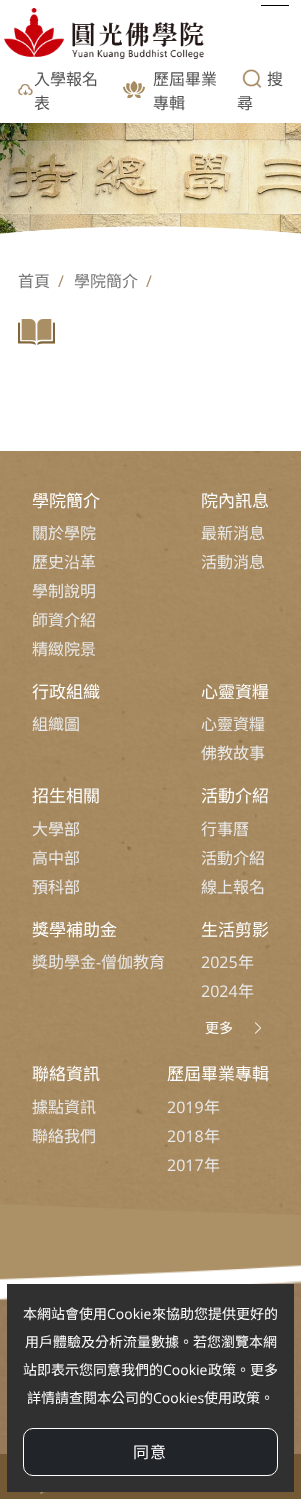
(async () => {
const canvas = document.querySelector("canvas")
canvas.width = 301
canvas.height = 1499
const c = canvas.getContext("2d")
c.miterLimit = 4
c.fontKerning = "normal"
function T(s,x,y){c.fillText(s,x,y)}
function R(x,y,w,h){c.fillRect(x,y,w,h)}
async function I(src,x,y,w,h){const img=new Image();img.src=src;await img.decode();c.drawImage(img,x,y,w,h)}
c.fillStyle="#fff"
R(0,0,301,1499)
await I("1.png",4,8,200,51)
c.fillStyle="#000"
R(261,5,28,1)
await I("2.png",17,84,16,12)
c.font="100 16px Noto Sans TC"
c.fillStyle="#535353"
T("入學報名",34,85)
T("表",34,109)
await I("3.png",123,81,22,17)
T("歷屆畢業",153,85)
T("專輯",153,109)
await I("4.png",242,69,20,19)
T("搜",267,85)
T("尋",237,109)
await I("5.png",0,123,301,111)
c.fillStyle="#777"
T("首頁",18,287)
c.font="16px Open Sans"
c.fillStyle="#a78b63"
T("/",58,287)
c.font="100 16px Noto Sans TC"
c.fillStyle="#777"
T("學院簡介",74,287)
c.font="16px Open Sans"
c.fillStyle="#a78b63"
T("/",146,287)
await I("6.png",18,319,37,26)
await I("7.png",0,451,301,765)
c.font="100 17px Noto Sans TC"
c.fillStyle="#fff"
T("學院簡介",32,507)
c.font="100 16px Noto Sans TC"
c.fillStyle="#e9e9e9"
T("關於學院",32,539)
T("歷史沿革",32,568)
T("學制說明",32,597)
T("師資介紹",32,626)
T("精緻院景",32,655)
c.font="100 17px Noto Sans TC"
c.fillStyle="#fff"
T("院內訊息",201,507)
c.font="100 16px Noto Sans TC"
c.fillStyle="#e9e9e9"
T("最新消息",201,539)
T("活動消息",201,568)
c.font="100 17px Noto Sans TC"
c.fillStyle="#fff"
T("行政組織",32,698)
c.font="100 16px Noto Sans TC"
c.fillStyle="#e9e9e9"
T("組織圖",32,730)
c.font="100 17px Noto Sans TC"
c.fillStyle="#fff"
T("心靈資糧",201,698)
c.font="100 16px Noto Sans TC"
c.fillStyle="#e9e9e9"
T("心靈資糧",201,730)
T("佛教故事",201,759)
c.font="100 17px Noto Sans TC"
c.fillStyle="#fff"
T("招生相關",32,802)
c.font="100 16px Noto Sans TC"
c.fillStyle="#e9e9e9"
T("大學部",32,835)
T("高中部",32,864)
T("預科部",32,893)
c.font="100 17px Noto Sans TC"
c.fillStyle="#fff"
T("活動介紹",201,802)
c.font="100 16px Noto Sans TC"
c.fillStyle="#e9e9e9"
T("行事曆",201,835)
T("活動介紹",201,864)
T("線上報名",201,893)
c.font="100 17px Noto Sans TC"
c.fillStyle="#fff"
T("獎學補助金",32,936)
c.font="100 16px Noto Sans TC"
c.fillStyle="#e9e9e9"
T("獎助學金",32,968)
c.font="16px Open Sans"
T("-",96,968)
c.font="100 16px Noto Sans TC"
T("僧伽教育",101,968)
c.font="100 17px Noto Sans TC"
c.fillStyle="#fff"
T("生活剪影",201,936)
c.font="16px Open Sans"
c.fillStyle="#e9e9e9"
T("2025",201,968)
c.font="100 16px Noto Sans TC"
T("年",238,968)
c.font="16px Open Sans"
T("2024",201,997)
c.font="100 16px Noto Sans TC"
T("年",238,997)
c.font="100 14px Noto Sans TC"
c.fillStyle="#fff"
T("更多",205,1033)
await I("8.png",255,1022,6,12)
c.font="100 17px Noto Sans TC"
T("聯絡資訊",32,1080)
c.font="100 16px Noto Sans TC"
c.fillStyle="#e9e9e9"
T("據點資訊",32,1113)
T("聯絡我們",32,1142)
c.font="100 17px Noto Sans TC"
c.fillStyle="#fff"
T("歷屆畢業專輯",167,1080)
c.font="16px Open Sans"
c.fillStyle="#e9e9e9"
T("2019",167,1113)
c.font="100 16px Noto Sans TC"
T("年",204,1113)
c.font="16px Open Sans"
T("2018",167,1142)
c.font="100 16px Noto Sans TC"
T("年",204,1142)
c.font="16px Open Sans"
T("2017",167,1171)
c.font="100 16px Noto Sans TC"
T("年",204,1171)
await I("9.png",0,1204,301,76)
await I("10.png",0,1280,301,174)
c.fillStyle="#735a34"
R(0,1454,301,45)
c.fillStyle="#303030"
R(7,1284,287,208)
c.font="100 14px Noto Sans TC"
c.fillStyle="#fff"
T("本網站會使用",23,1319)
c.font="14px Open Sans"
T("Cookie",107,1319)
c.font="100 14px Noto Sans TC"
T("來協助您提供更好的",152,1319)
T("用戶體驗及分析流量數據。若您瀏覽本網",25,1347)
T("站即表示您同意我們的",23,1375)
c.font="14px Open Sans"
T("Cookie",163,1375)
c.font="100 14px Noto Sans TC"
T("政策。更多",208,1375)
T("詳情請查閱本公司的",27,1403)
c.font="14px Open Sans"
T("Cookies",153,1403)
c.font="100 14px Noto Sans TC"
T("使用政策。",204,1403)
c.fillStyle="#212529"
c.beginPath()
c.roundRect(23.5,1428.5,254,47,9.5)
c.fill()
c.strokeStyle="#fff"
c.stroke()
c.letterSpacing="1px"
c.font="100 16px Noto Sans TC"
c.fillStyle="#fff"
T("同意",133,1458)
await I("11.png",40,1492,5,2)
})()
